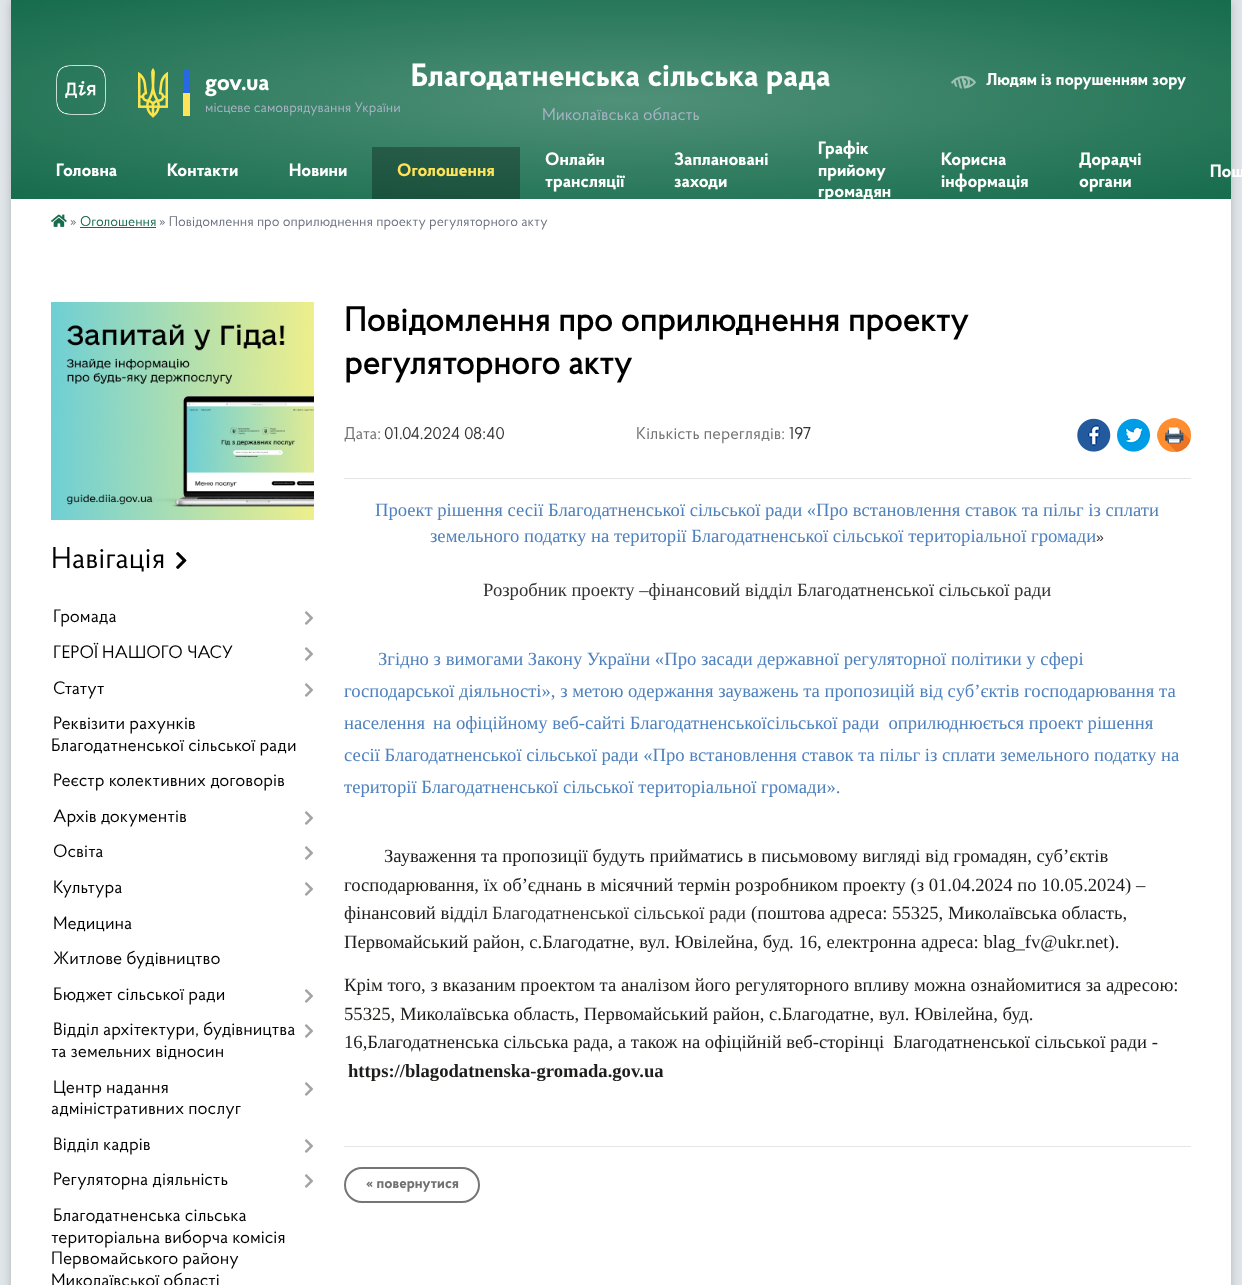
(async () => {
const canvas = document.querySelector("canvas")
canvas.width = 1242
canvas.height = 1285
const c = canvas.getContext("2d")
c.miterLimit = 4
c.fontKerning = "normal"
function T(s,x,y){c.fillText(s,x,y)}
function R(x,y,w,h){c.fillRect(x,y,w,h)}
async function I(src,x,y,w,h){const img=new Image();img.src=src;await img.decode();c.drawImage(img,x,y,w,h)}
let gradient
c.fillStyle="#dee4e7"
R(0,0,1242,1285)
c.fillStyle="#00000033"
c.filter="blur(4px)"
c.beginPath()
c.rect(11,1,1220,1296)
c.fill()
c.filter="none"
c.fillStyle="#fff"
R(11,199,1220,1086)
gradient = c.createRadialGradient(621,612.06,0,621,612.06,863)
gradient.addColorStop(0,"#509179")
gradient.addColorStop(1,"#166c4c")
c.fillStyle = gradient
c.beginPath()
c.rect(11,0,1220,199)
c.save()
c.clip()
c.scale(1,141 / 863)
c.fillRect(0,0,1242,7865)
c.restore()
gradient = c.createRadialGradient(621,612.06,0,621,612.06,863)
gradient.addColorStop(0,"#386655")
gradient.addColorStop(1,"#0f4c35")
c.fillStyle = gradient
c.beginPath()
c.rect(372,147,148,52)
c.save()
c.clip()
c.scale(1,141 / 863)
c.fillRect(0,0,1242,7865)
c.restore()
await I("1.png",56,65,50,50)
await I("2.png",138,68,30,50)
c.fillStyle="#2669e3"
R(183,70,7,23)
c.fillStyle="#ffe358"
R(183,93,7,23)
c.font="bold 24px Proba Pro"
c.fillStyle="#fff"
T("gov.ua",205,90)
c.font="14px Proba Pro"
c.fillStyle="#aab3c6"
T("місцеве самоврядування України",205,112)
c.font="bold 32px Proba Pro"
c.fillStyle="#fff"
T("Благодатненська сільська рада",411,86)
c.font="17px Proba Pro"
c.fillStyle="#aab3c6"
T("Миколаївська область",542,120)
await I("3.png",951,76,25,13)
c.font="bold 17px Proba Pro"
c.fillStyle="#fff"
T("Людям із порушенням зору",986,85)
c.font="bold 18px Proba Pro"
T("Головна",56,176)
T("Контакти",167,176)
T("Новини",289,176)
c.fillStyle="#ffe358"
T("Оголошення",397,176)
c.fillStyle="#fff"
T("Онлайн",545,165)
T("трансляції",545,187)
T("Заплановані",674,165)
T("заходи",674,187)
T("Графік",818,154)
T("прийому",818,176)
T("громадян",818,197)
T("Корисна",941,165)
T("інформація",941,187)
T("Дорадчі",1079,165)
T("органи",1079,187)
T("Пош",1210,177)
await I("4.png",51,214,16,13)
c.font="14px Proba Pro"
c.fillStyle="#6d7381"
T("»",70,226)
c.fillStyle="#166c4c"
T("Оголошення",80,226)
R(80,227,76,1)
c.fillStyle="#6d7381"
T("» Повідомлення про оприлюднення проекту регуляторного акту",159,226)
await I("5.png",51,302,263,218)
c.font="30px Proba Pro"
c.fillStyle="#000"
T("Навігація",51,568)
await I("6.png",176,552,11,17)
c.font="18px Proba Pro"
T("Громада",53,622)
await I("7.png",304,611,9,14)
T("ГЕРОЇ НАШОГО ЧАСУ",53,658)
await I("7.png",304,647,9,14)
T("Статут",53,694)
await I("7.png",304,683,9,14)
T("Реквізити рахунків",53,729)
T("Благодатненської сільської ради",51,751)
T("Реєстр колективних договорів",53,786)
T("Архів документів",53,822)
await I("7.png",304,811,9,14)
T("Освіта",53,857)
await I("7.png",304,846,9,14)
T("Культура",53,893)
await I("7.png",304,882,9,14)
T("Медицина",53,929)
T("Житлове будівництво",53,964)
T("Бюджет сільської ради",53,1000)
await I("7.png",304,989,9,14)
T("Відділ архітектури, будівництва",53,1035)
T("та земельних відносин",51,1057)
await I("7.png",304,1024,9,14)
T("Центр надання",53,1093)
T("адміністративних послуг",51,1114)
await I("7.png",304,1082,9,14)
T("Відділ кадрів",53,1150)
await I("7.png",304,1139,9,14)
T("Регуляторна діяльність",53,1185)
await I("7.png",304,1174,9,14)
T("Благодатненська сільська",53,1221)
T("територіальна виборча комісія",51,1243)
T("Первомайського району",51,1264)
T("Миколаївської області",51,1286)
c.font="bold 34px 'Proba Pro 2'"
T("Повідомлення про оприлюднення проекту",344,331)
T("регуляторного акту",344,374)
c.font="17px Proba Pro"
c.fillStyle="#727272"
T("Дата:",344,439)
c.fillStyle="#333"
T("01.04.2024 08:40",384,439)
c.fillStyle="#727272"
T("Кількість переглядів:",636,439)
c.fillStyle="#333"
T("197",789,439)
await I("8.png",1077,418,34,34)
await I("9.png",1117,418,33,34)
await I("10.png",1157,418,34,34)
c.fillStyle="#e5e5e5"
R(344,478,847,1)
c.font="18.65px Liberation Serif"
c.fillStyle="#4f81bd"
T("Проект рішення сесії Благодатненської сільської ради «Про встановлення ставок та пільг із сплати",375,516)
T("земельного податку",430,542)
T("на території Благодатненської сільської територіальної громади",591,542)
c.font="14px Liberation Sans"
c.fillStyle="#333"
T("»",1096,542)
c.font="18.65px Liberation Serif"
T("Розробник проекту –фінансовий відділ Благодатненської сільської ради",483,596)
c.fillStyle="#4f81bd"
T("Згідно з вимогами Закону України «Про засади державної регуляторної політики у сфері",378,665)
T("господарської діяльності», з метою одержання зауважень та пропозицій від суб’єктів господарювання та",344,697)
T("населення",344,729)
T("на офіційному веб-сайті Благодатненськоїсільської ради  оприлюднюється проект рішення",433,729)
T("сесії Благодатненської сільської ради «Про встановлення ставок та пільг із сплати земельного податку на",344,761)
T("території Благодатненської сільської територіальної громади».",344,793)
c.fillStyle="#1d1d1b"
T("Зауваження та пропозиції будуть прийматись в письмовому вигляді від громадян, суб’єктів",384,862)
T("господарювання, їх об’єднань в місячний термін розробником проекту (з 01.04.2024 по 10.05.2024) –",344,891)
T("фінансовий відділ",344,919)
c.fillStyle="#333"
T("Благодатненської сільської ради",492,919)
c.fillStyle="#1d1d1b"
T("(поштова адреса: 55325, Миколаївська область,",751,919)
T("Первомайський район, с.Благодатне, вул. Ювілейна, буд. 16, електронна адреса: blag_fv@ukr",344,948)
T(".net).",1081,948)
T("Крім того, з вказаним проектом та аналізом його регуляторного впливу можна ознайомитися за адресою:",344,991)
T("55325, Миколаївська область, Первомайський район, с.Благодатне, вул. Ювілейна, буд.",344,1020)
T("16,Благодатненська сільська рада, а також на офіційній веб-сторінці",344,1048)
T("Благодатненської сільської ради -",893,1048)
c.font="bold 18.65px Liberation Serif"
T("https://blagodatnenska-gromada.gov.ua",348,1077)
c.fillStyle="#e5e5e5"
R(344,1146,847,1)
c.beginPath()
c.roundRect(345,1168,134,34,17)
c.strokeStyle="#757575"
c.lineWidth=2
c.stroke()
c.font="bold 15px Proba Pro"
c.fillStyle="#727272"
T("« повернутися",366,1188)
})()
